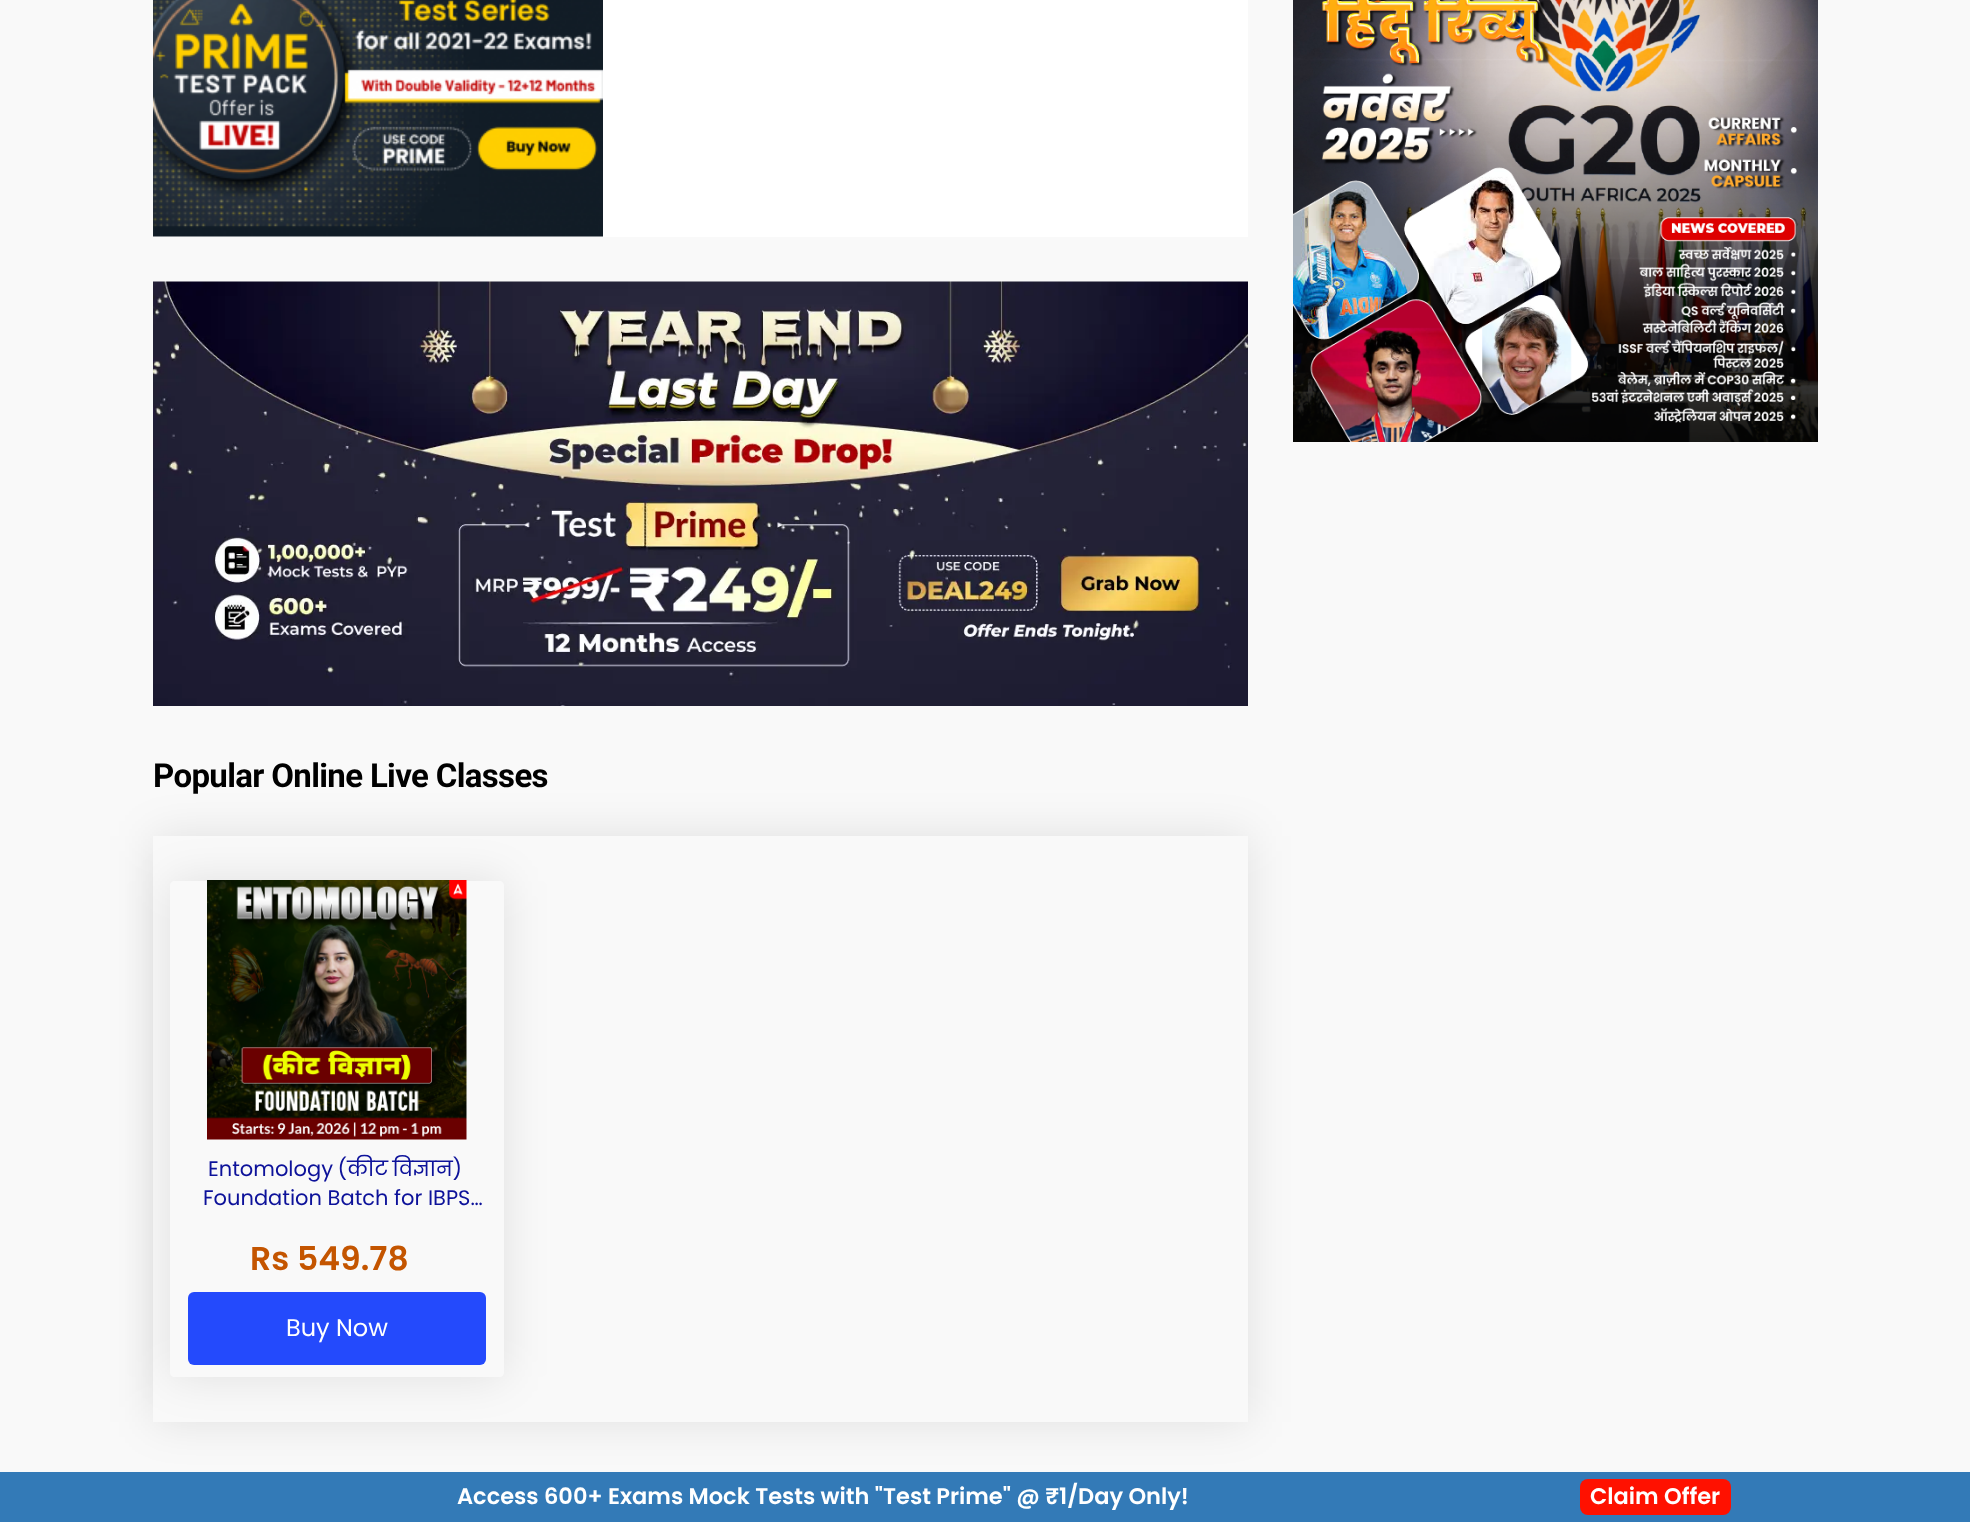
(async () => {
const canvas = document.querySelector("canvas")
canvas.width = 1970
canvas.height = 1522
const c = canvas.getContext("2d")
c.miterLimit = 4
c.fontKerning = "normal"
function T(s,x,y){c.fillText(s,x,y)}
function R(x,y,w,h){c.fillRect(x,y,w,h)}
function Q(x,y,w,h,r){c.beginPath();c.roundRect(x,y,w,h,r);c.fill()}
async function I(src,x,y,w,h){const img=new Image();img.src=src;await img.decode();c.drawImage(img,x,y,w,h)}
let path
c.fillStyle="#f9f9f9"
R(0,0,1970,1522)
await I("1.png",1293,0,525,442)
c.fillStyle="#fff"
R(153,0,1095,237)
await I("2.png",153,0,450,237)
await I("3.png",153,281,1095,425)
c.save()
path = new Path2D("M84 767h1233v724h-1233zm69 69h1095v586h-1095z")
c.clip(path,"evenodd")
c.fillStyle="#0000001a"
c.filter="blur(22.5px)"
c.beginPath()
c.rect(153,836,1095,586)
c.fill()
c.filter="none"
c.restore()
c.letterSpacing="-0.65px"
c.font="bold 33px Roboto"
c.fillStyle="#000"
T("Popular Online Live Classes",153,787)
c.save()
path = new Path2D("M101 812h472v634h-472zm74 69h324c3 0 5 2 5 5v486c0 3-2 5-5 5h-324c-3 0-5-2-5-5v-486c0-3 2-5 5-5z")
c.clip(path,"evenodd")
c.fillStyle="#0000001a"
c.filter="blur(22.5px)"
c.beginPath()
c.roundRect(170,881,334,496,5)
c.fill()
c.filter="none"
c.restore()
await I("4.png",207,880,260,260)
c.letterSpacing="0px"
c.wordSpacing="-1px"
c.font="21px Poppins"
c.fillStyle="#0d129a"
T("Entomology (कीट विज्ञान)",208,1176)
c.wordSpacing="0px"
T("Foundation Batch for IBPS…",203,1205)
c.font="600 33px Poppins"
c.fillStyle="#c45500"
T("Rs 549.78",250,1270)
c.fillStyle="#244afc"
Q(188,1292,298,73,6)
c.font="24px Poppins"
c.fillStyle="#fff"
T("Buy Now",286,1336)
c.fillStyle="#337ab7"
R(0,1472,1970,50)
c.font="600 22.5px Poppins"
c.fillStyle="#fff"
T("Access 600+ Exams Mock Tests with \"Test Prime\" @ ₹1/Day Only!",457,1504)
c.fillStyle="#f10"
Q(1580,1479,151,36,8)
c.fillStyle="#fff"
T("Claim Offer",1590,1504)
})()
